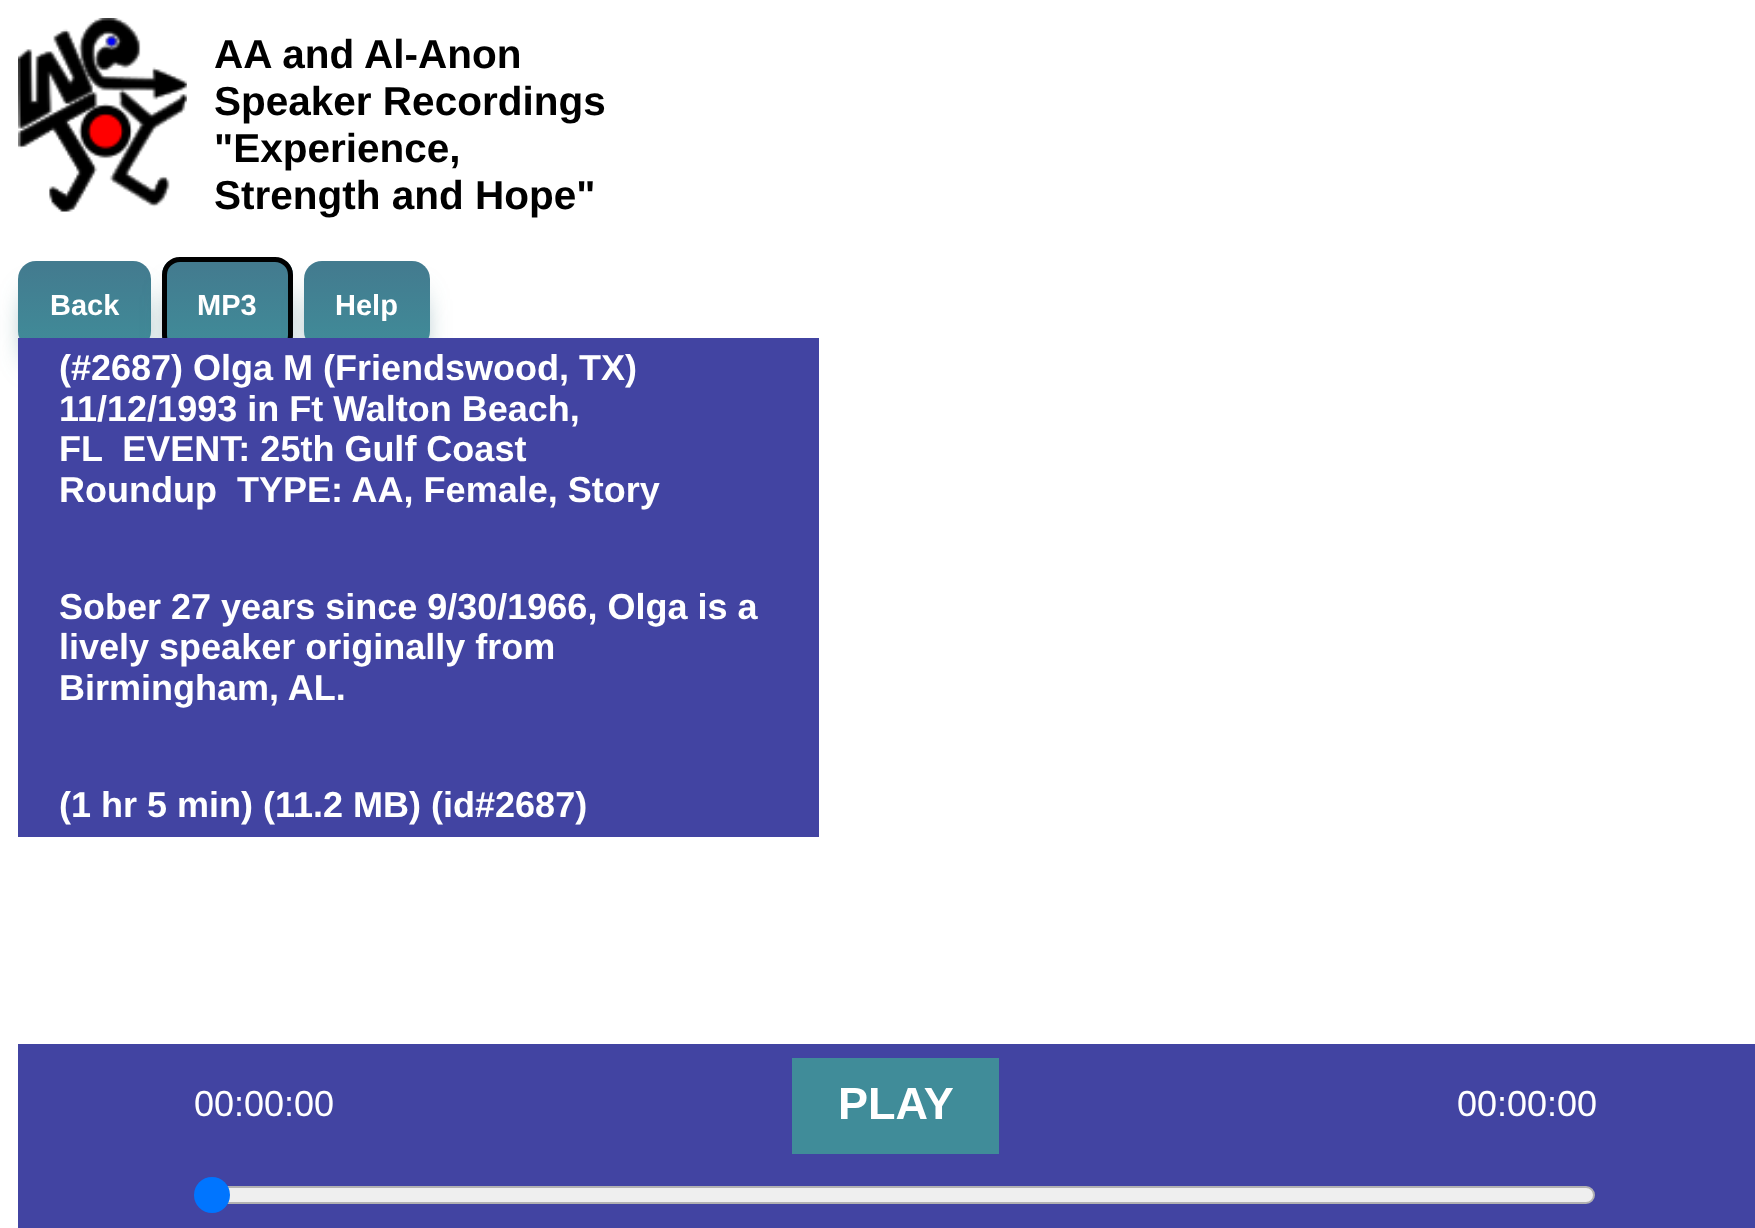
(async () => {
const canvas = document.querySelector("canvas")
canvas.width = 1755
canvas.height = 1228
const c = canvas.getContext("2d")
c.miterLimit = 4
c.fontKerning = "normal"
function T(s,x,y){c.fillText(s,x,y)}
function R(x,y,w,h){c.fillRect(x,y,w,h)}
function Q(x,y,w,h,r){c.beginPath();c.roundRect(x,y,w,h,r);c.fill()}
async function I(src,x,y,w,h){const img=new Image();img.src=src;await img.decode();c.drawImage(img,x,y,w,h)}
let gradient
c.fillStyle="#fff"
R(0,0,1755,1228)
await I("1.png",18,18,169,194)
c.font="bold 40.5px Liberation Sans"
c.fillStyle="#000"
T("AA and Al-Anon",214,68)
T("Speaker Recordings",214,115)
T("\"Experience,",214,162)
T("Strength and Hope\"",214,209)
c.fillStyle="#276873"
c.filter="blur(16px)"
c.beginPath()
c.roundRect(34,299,101,57,2)
c.fill()
c.filter="none"
gradient = c.createLinearGradient(84,261,84,349)
gradient.addColorStop(.05,"#437b8f")
gradient.addColorStop(1,"#408c99")
c.fillStyle = gradient
Q(18,261,133,88,18)
c.font="bold 29px Liberation Sans"
c.fillStyle="#fff"
T("Back",50,315)
c.fillStyle="#276873"
c.filter="blur(16px)"
c.beginPath()
c.roundRect(178,295,99,65,2)
c.fill()
c.filter="none"
c.save()
c.beginPath()
c.roundRect(162,257,131,96,18)
c.clip()
gradient = c.createLinearGradient(227,261,227,349)
gradient.addColorStop(.05,"#437b8f")
gradient.addColorStop(1,"#408c99")
c.fillStyle = gradient
R(162,261,131,77)
c.restore()
c.beginPath()
c.roundRect(164.5,259.5,126,91,15.5)
c.strokeStyle="#000"
c.lineWidth=5
c.stroke()
c.fillStyle="#fff"
T("MP3",197,315)
c.fillStyle="#276873"
c.filter="blur(16px)"
c.beginPath()
c.roundRect(320,299,94,57,2)
c.fill()
c.filter="none"
gradient = c.createLinearGradient(367,261,367,349)
gradient.addColorStop(.05,"#437b8f")
gradient.addColorStop(1,"#408c99")
c.fillStyle = gradient
Q(304,261,126,88,18)
c.fillStyle="#fff"
T("Help",335,315)
c.fillStyle="#4244a2"
R(18,338,801,499)
c.font="bold 36px Liberation Sans"
c.fillStyle="#fff"
T("(#2687) Olga M (Friendswood, TX)",59,380)
T("11/12/1993 in Ft Walton Beach,",59,421)
T("FL  EVENT: 25th Gulf Coast",59,461)
T("Roundup  TYPE: AA, Female, Story",59,502)
T("Sober 27 years since 9/30/1966, Olga is a",59,619)
T("lively speaker originally from",59,659)
T("Birmingham, AL.",59,700)
T("(1 hr 5 min) (11.2 MB) (id#2687)",59,817)
c.fillStyle="#4244a2"
R(18,1044,1737,184)
c.font="36px Liberation Sans"
c.fillStyle="#fff"
T("00:00:00",194,1116)
c.fillStyle="#408c99"
R(792,1058,207,96)
c.font="bold 45px Liberation Sans"
c.fillStyle="#fff"
T("PLAY",838,1119)
c.font="36px Liberation Sans"
T("00:00:00",1457,1116)
c.fillStyle="#efefef"
c.beginPath()
c.roundRect(197,1187,1397,16,8)
c.fill()
c.strokeStyle="#b2b2b2"
c.lineWidth=2
c.stroke()
c.fillStyle="#0075ff"
c.beginPath()
c.arc(212,1195,18,0,7)
c.fill()
})()
